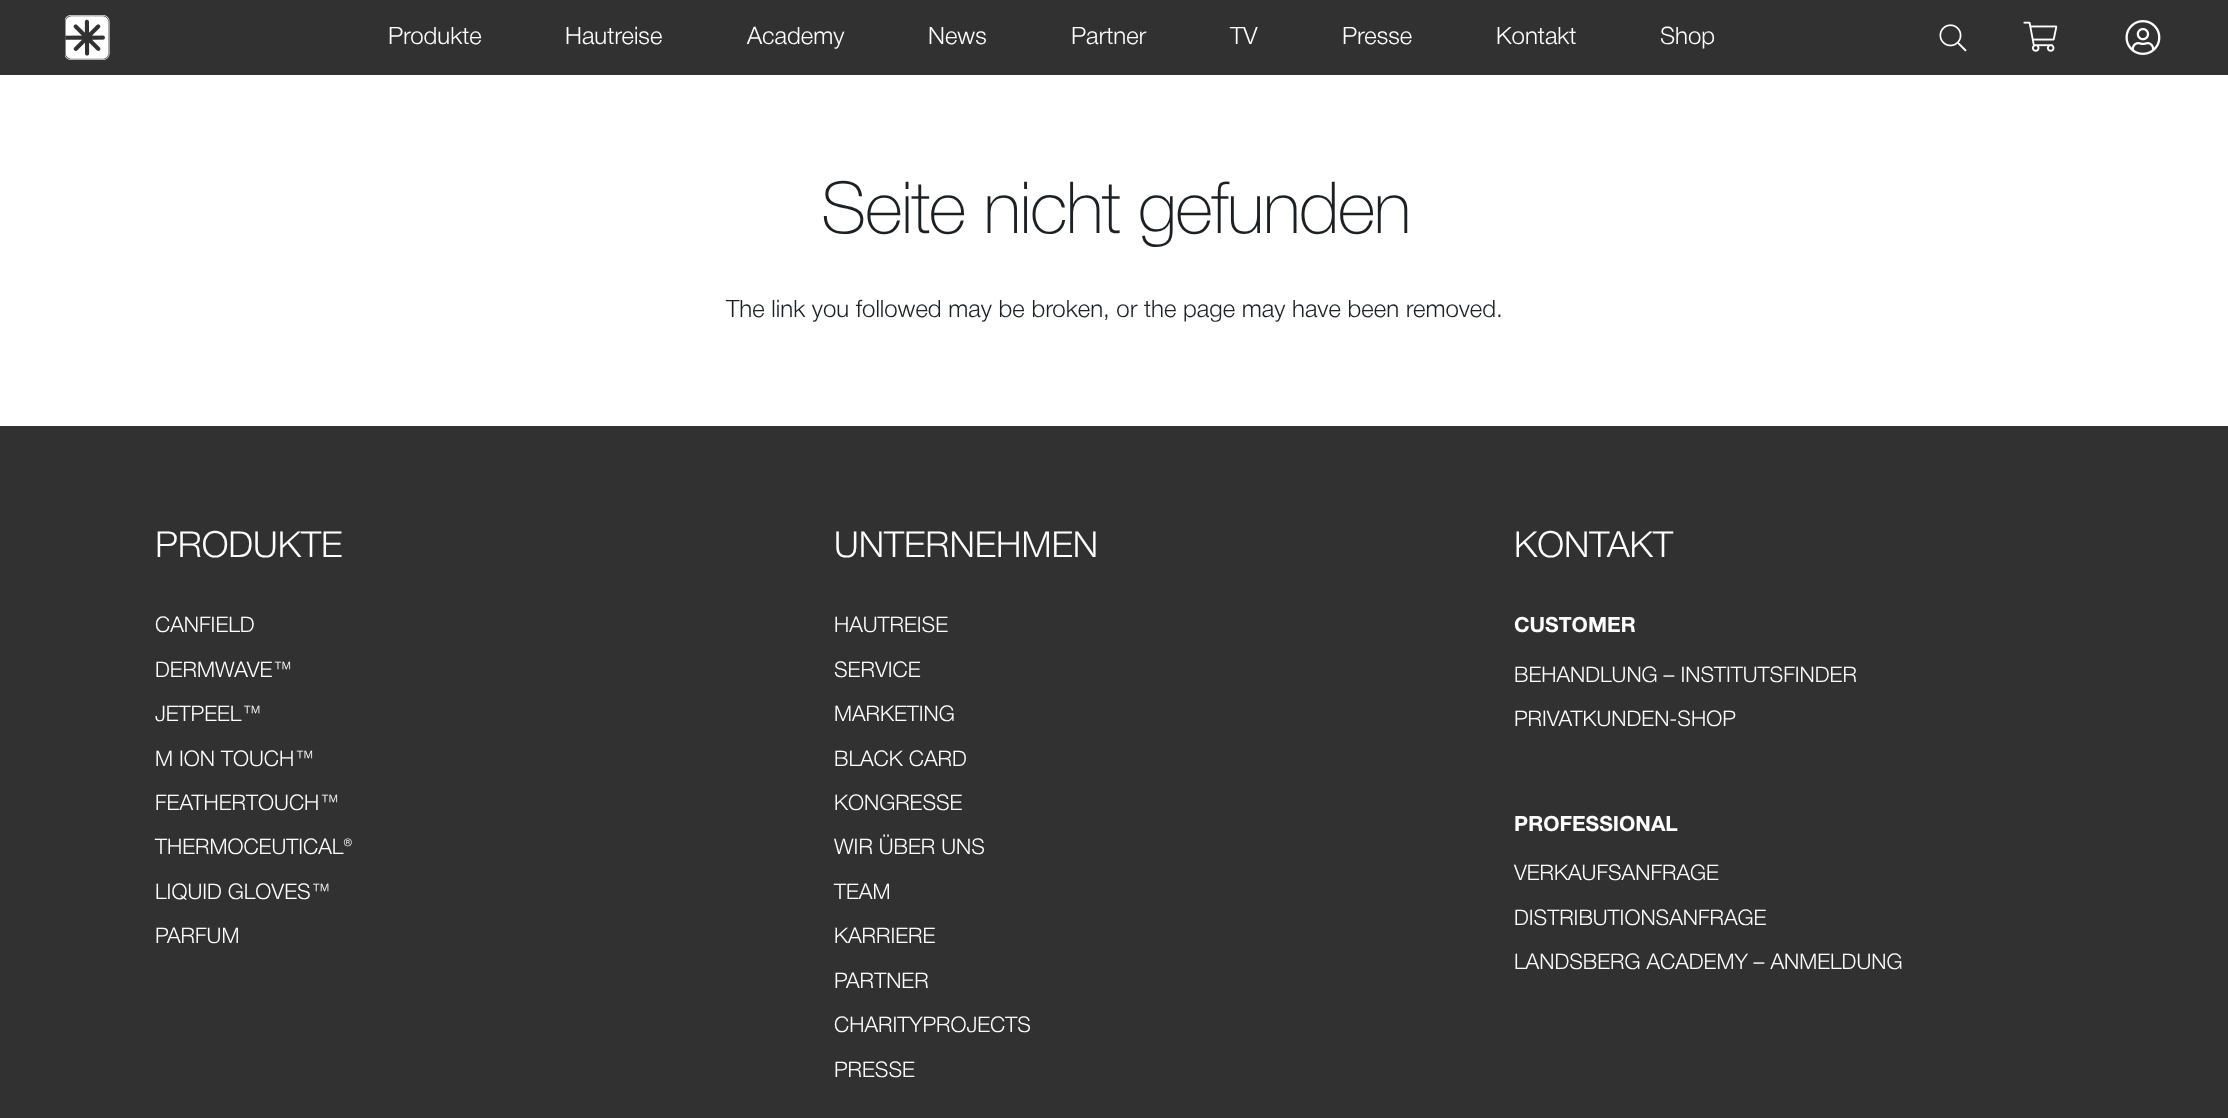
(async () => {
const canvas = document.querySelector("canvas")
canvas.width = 2228
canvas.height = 1118
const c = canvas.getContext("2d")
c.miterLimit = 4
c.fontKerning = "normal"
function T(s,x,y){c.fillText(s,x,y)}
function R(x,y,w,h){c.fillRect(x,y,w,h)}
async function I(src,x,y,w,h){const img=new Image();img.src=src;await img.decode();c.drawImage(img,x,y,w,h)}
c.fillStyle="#fff"
R(0,0,2228,1118)
c.fillStyle="#313131"
R(0,0,2228,75)
await I("1.png",65,15,45,45)
c.font="300 24px Helvetica Neue"
c.fillStyle="#fff"
T("Produkte",388,44)
T("Hautreise",565,44)
T("Academy",747,44)
T("News",928,44)
T("Partner",1071,44)
T("TV",1230,44)
T("Presse",1342,44)
T("Kontakt",1496,44)
T("Shop",1660,44)
await I("2.png",1939,24,28,28)
await I("3.png",2023,21,35,31)
await I("4.png",2125,20,36,35)
c.letterSpacing="-1.4px"
c.font="100 72px Helvetica Neue"
c.fillStyle="#1c2023"
T("Seite nicht gefunden",821,233)
c.letterSpacing="0px"
c.font="300 24px Helvetica Neue"
T("The link you followed may be broken, or the page may have been removed.",726,317)
c.fillStyle="#313131"
R(0,426,2228,692)
c.font="300 36px Helvetica Neue"
c.fillStyle="#fff"
T("PRODUKTE",155,557)
c.font="300 21.6px Helvetica Neue"
T("CANFIELD",155,632)
T("DERMWAVE™",155,677)
T("JETPEEL™",155,721)
T("M ION TOUCH™",155,766)
T("FEATHERTOUCH™",155,810)
T("THERMOCEUTICAL®",155,854)
T("LIQUID GLOVES™",155,899)
T("PARFUM",155,943)
c.font="300 36px Helvetica Neue"
T("UNTERNEHMEN",834,557)
c.font="300 21.6px Helvetica Neue"
T("HAUTREISE",834,632)
T("SERVICE",834,677)
T("MARKETING",834,721)
T("BLACK CARD",834,766)
T("KONGRESSE",834,810)
T("WIR ÜBER UNS",834,854)
T("TEAM",834,899)
T("KARRIERE",834,943)
T("PARTNER",834,988)
T("CHARITYPROJECTS",834,1032)
T("PRESSE",834,1077)
c.font="300 36px Helvetica Neue"
T("KONTAKT",1514,557)
c.font="bold 21px Helvetica Neue"
T("CUSTOMER",1514,632)
c.font="300 21.6px Helvetica Neue"
T("BEHANDLUNG – INSTITUTSFINDER",1514,682)
T("PRIVATKUNDEN-SHOP",1514,726)
c.font="bold 21px Helvetica Neue"
T("PROFESSIONAL",1514,831)
c.font="300 21.6px Helvetica Neue"
T("VERKAUFSANFRAGE",1514,880)
T("DISTRIBUTIONSANFRAGE",1514,925)
T("LANDSBERG ACADEMY – ANMELDUNG",1514,969)
})()
